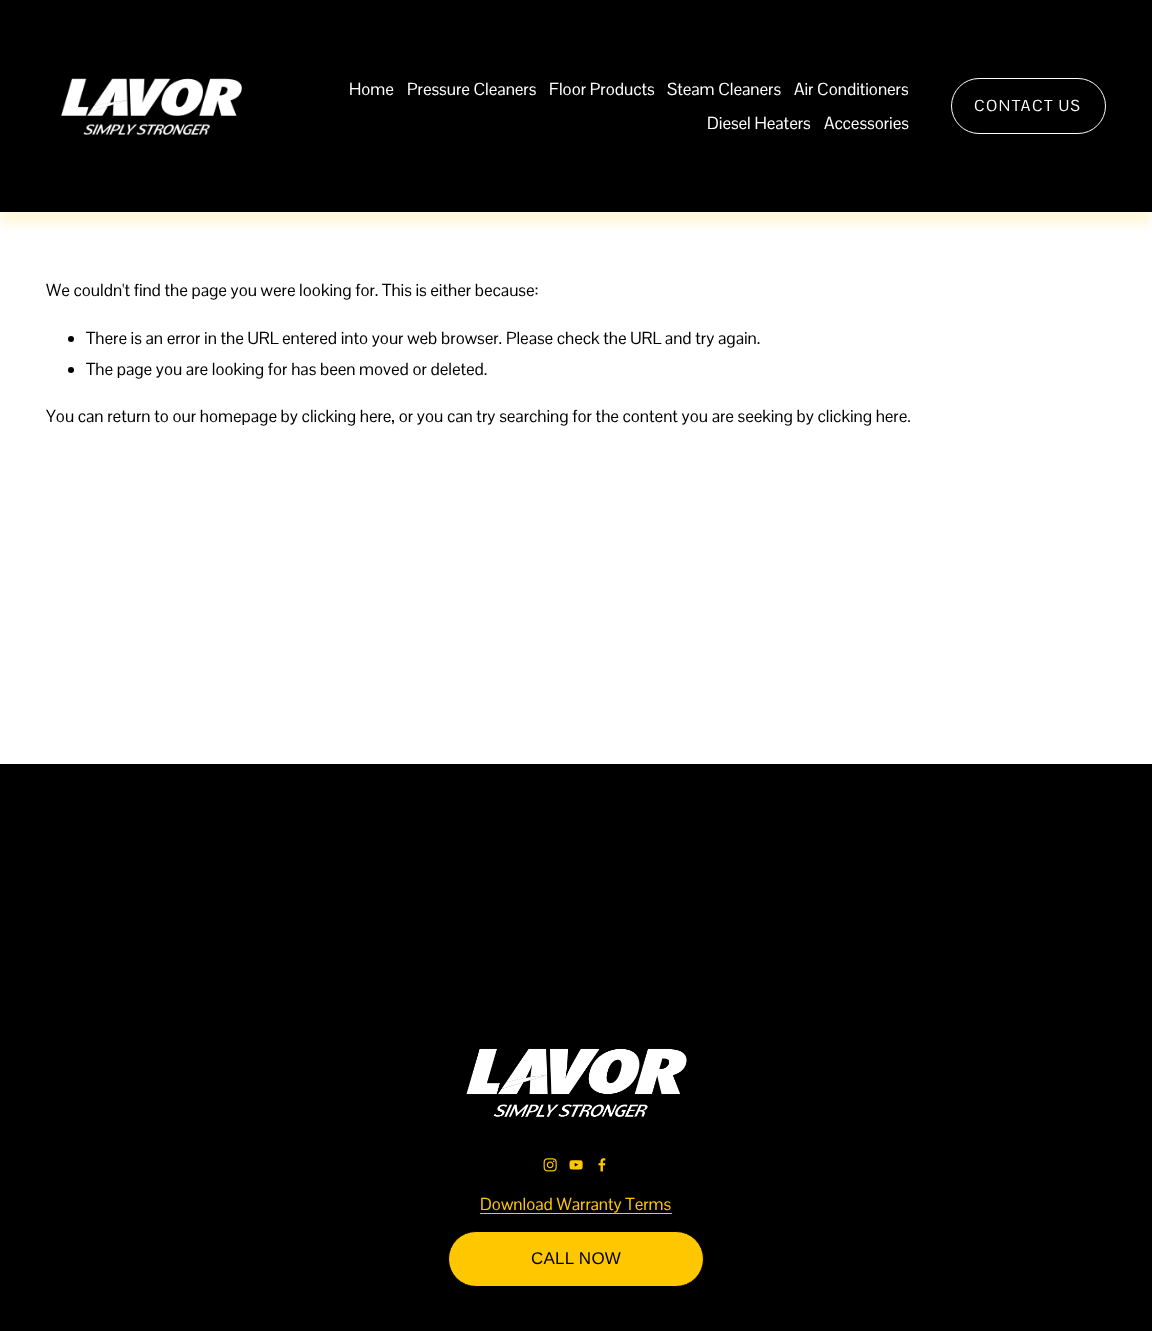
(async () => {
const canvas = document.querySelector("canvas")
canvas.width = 1152
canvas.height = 1331
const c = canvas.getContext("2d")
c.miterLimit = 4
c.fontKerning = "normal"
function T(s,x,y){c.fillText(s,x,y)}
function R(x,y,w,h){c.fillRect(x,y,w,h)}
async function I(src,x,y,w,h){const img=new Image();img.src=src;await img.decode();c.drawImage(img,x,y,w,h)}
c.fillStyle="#fff"
R(0,0,1152,1331)
c.fillStyle="#fff7d9"
c.filter="blur(6px)"
c.beginPath()
c.rect(0,12,1152,212)
c.fill()
c.filter="none"
c.fillStyle="#000"
R(0,0,1152,212)
await I("1.png",61,78,181,57)
c.font="17px Pontano Sans"
c.fillStyle="#fff"
T("Home",349,95)
T("Pressure Cleaners",407,95)
T("Floor Products",549,95)
T("Steam Cleaners",667,95)
T("Air Conditioners",794,95)
T("Diesel Heaters",707,129)
T("Accessories",824,129)
c.beginPath()
c.roundRect(951.5,78.5,154,55,27.5)
c.strokeStyle="#fff"
c.stroke()
c.letterSpacing="1.5px"
c.font="15.5px Pontano Sans"
T("CONTACT US",974,111)
c.letterSpacing="0px"
c.font="17px Pontano Sans"
c.fillStyle="#000"
T("We couldn't find the page you were looking for. This is either because:",46,296)
c.beginPath()
c.arc(71,339,3,0,7)
c.fill()
T("There is an error in the URL entered into your web browser. Please check the URL and try again.",86,344)
c.beginPath()
c.arc(71,370,3,0,7)
c.fill()
T("The page you are looking for has been moved or deleted.",86,375)
T("You can return to our homepage by clicking here, or you can try searching for the content you are seeking by clicking here.",46,422)
R(0,764,1152,567)
await I("2.png",466,1048,221,69)
await I("3.png",543,1158,14,14)
await I("4.png",569,1160,14,10)
await I("5.png",598,1158,8,14)
c.fillStyle="#ffc700"
T("Download Warranty Terms",480,1210)
R(480,1213,192,1)
c.beginPath()
c.roundRect(448.5,1231.5,255,55,27.5)
c.fill()
c.strokeStyle="#000"
c.stroke()
c.letterSpacing="0.25px"
c.font="17px Liberation Sans"
c.fillStyle="#000"
T("CALL NOW",531,1264)
})()
